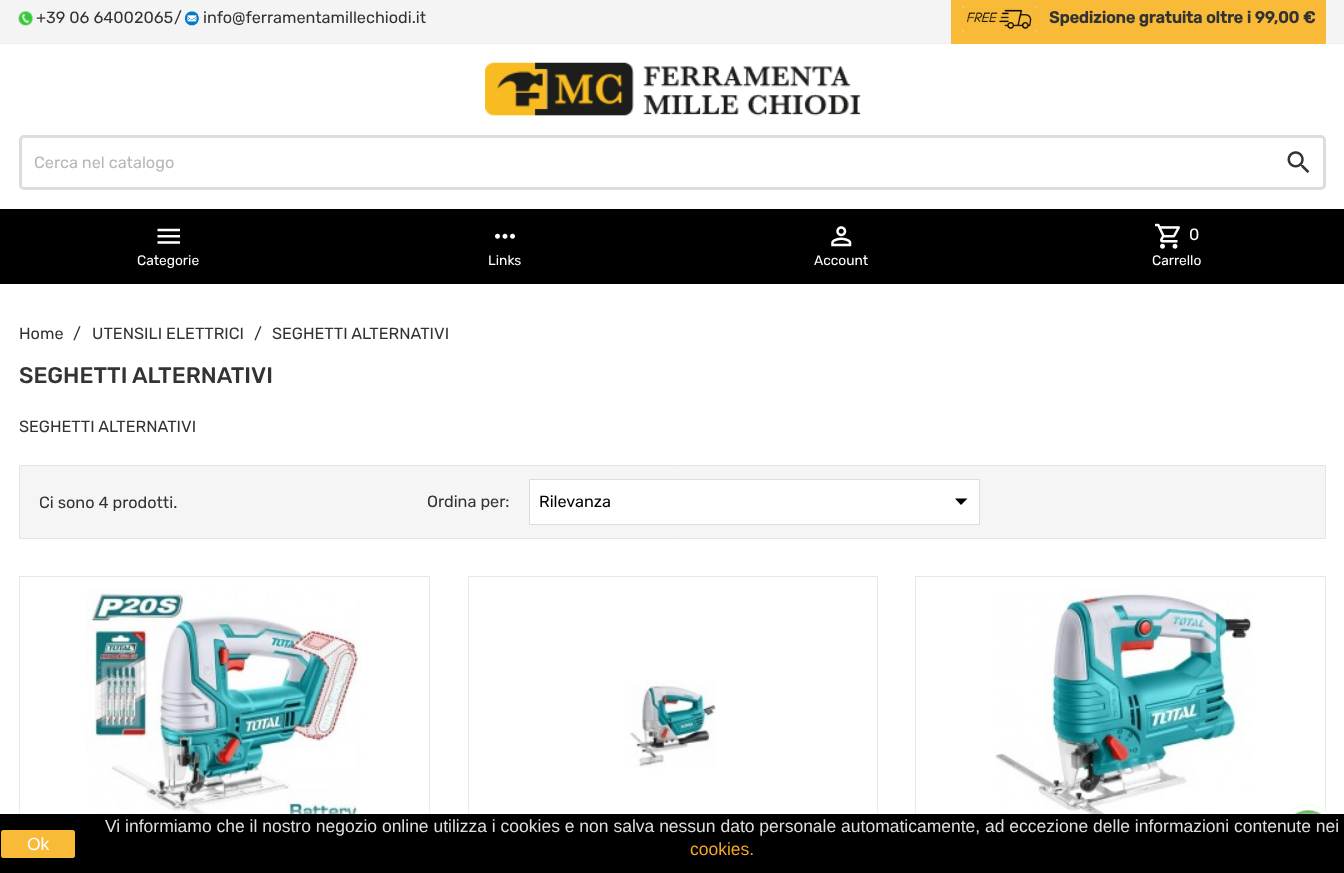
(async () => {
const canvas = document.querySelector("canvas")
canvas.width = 1344
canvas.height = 873
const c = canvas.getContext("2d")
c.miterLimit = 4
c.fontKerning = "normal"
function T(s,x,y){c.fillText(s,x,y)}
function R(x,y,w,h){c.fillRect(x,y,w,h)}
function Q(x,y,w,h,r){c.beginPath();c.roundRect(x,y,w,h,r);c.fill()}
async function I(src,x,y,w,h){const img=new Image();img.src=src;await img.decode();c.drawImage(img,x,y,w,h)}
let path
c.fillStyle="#fff"
R(0,0,1344,873)
c.fillStyle="#f4f4f4"
R(0,0,1344,43)
c.fillStyle="#eee"
R(0,43,1344,1)
await I("1.png",18,11,15,15)
c.font="16.25px Rubik"
c.fillStyle="#333"
T("+39 06 64002065",36,23)
T("/",174,23)
await I("2.png",185,11,14,15)
T("info@ferramentamillechiodi.it",203,23)
c.fillStyle="#f9ba38"
R(951,0,375,44)
await I("3.png",962,6,75,26)
c.font="bold 16.25px Rubik"
c.fillStyle="#333"
T("Spedizione gratuita oltre i 99,00 €",1049,23)
await I("4.png",485,62,376,54)
c.beginPath()
c.roundRect(20.5,136.5,1304,52,3.5)
c.strokeStyle="#ddd"
c.lineWidth=3
c.stroke()
c.font="16.25px Rubik"
c.fillStyle="#b7b7b7"
T("Cerca nel catalogo",34,168)
await I("5.png",1287,151,23,22)
c.fillStyle="#000"
R(0,209,1344,75)
await I("6.png",157,228,23,16)
c.font="13.75px Rubik"
c.fillStyle="#fff"
T("Categorie",137,265)
await I("7.png",495,233,20,6)
T("Links",488,265)
await I("8.png",831,226,21,21)
T("Account",814,265)
await I("9.png",1155,223,25,26)
c.font="16.25px Rubik"
T("0",1189,240)
c.font="13.75px Rubik"
T("Carrello",1152,265)
c.font="16.25px Rubik"
c.fillStyle="#333"
T("Home",19,339)
T("/",73,339)
T("UTENSILI ELETTRICI",92,339)
T("/",254,339)
T("SEGHETTI ALTERNATIVI",272,339)
c.font="500 22.5px Rubik"
T("SEGHETTI ALTERNATIVI",19,383)
c.font="16.25px Rubik"
T("SEGHETTI ALTERNATIVI",19,432)
c.fillStyle="#f5f5f5"
c.beginPath()
c.rect(19.5,465.5,1306,73)
c.fill()
c.strokeStyle="#e5e5e5"
c.lineWidth=1
c.stroke()
c.fillStyle="#333"
T("Ci sono 4 prodotti.",39,508)
T("Ordina per:",427,507)
c.fillStyle="#fff"
c.beginPath()
c.rect(529.5,479.5,450,45)
c.fill()
c.strokeStyle="#ddd"
c.stroke()
c.fillStyle="#000"
T("Rilevanza",539,507)
path = new Path2D("M955 498.5l6 6.5l6.5-6.5z")
c.fill(path)
c.strokeStyle="#e8e8e8"
c.strokeRect(19.5,576.5,410,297)
await I("10.png",86,589,275,225)
c.strokeRect(468.5,576.5,409,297)
await I("11.png",625,679,91,90)
c.strokeRect(915.5,576.5,410,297)
await I("12.png",994,589,258,225)
await I("13.png",1286,804,44,10)
c.fillStyle="#fff"
c.filter="blur(6px)"
c.beginPath()
c.rect(0,814,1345,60)
c.fill()
c.filter="none"
c.fillStyle="#000"
R(0,814,1344,59)
c.fillStyle="#f9ba38"
Q(1,830,74,28,2.5)
c.font="17.5px Liberation Sans"
c.fillStyle="#fff"
T("Ok",27,850)
c.fillStyle="#e1dcdc"
T("Vi informiamo che il nostro negozio online utilizza i cookies e non salva nessun dato personale automaticamente, ad eccezione delle informazioni contenute nei",105,832)
c.fillStyle="#f5a623"
T("cookies.",690,855)
})()
